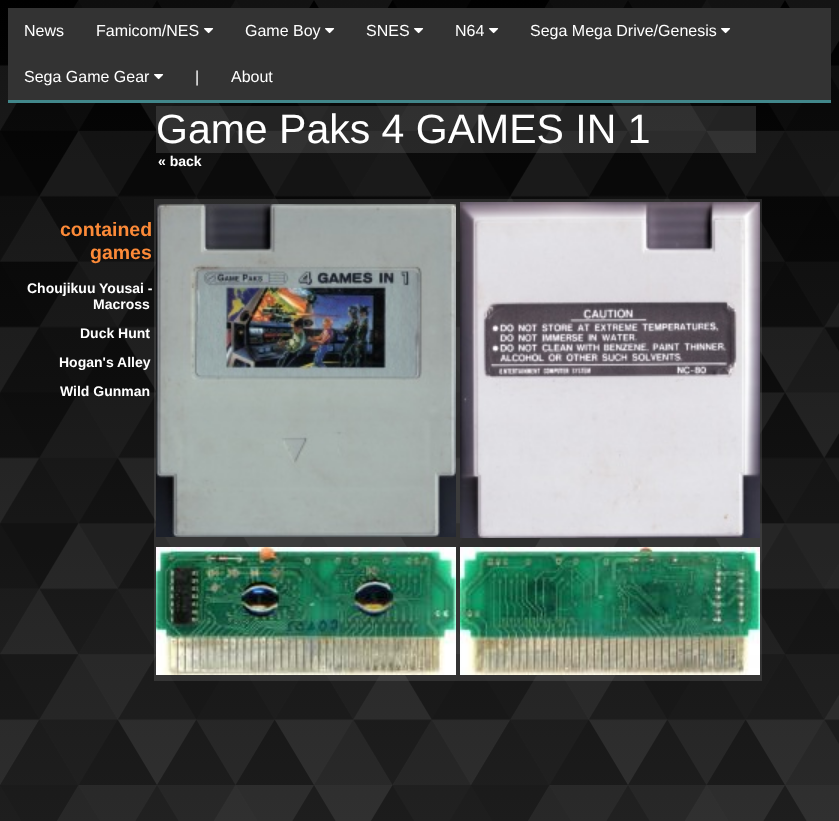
(async () => {
const canvas = document.querySelector("canvas")
canvas.width = 839
canvas.height = 821
const c = canvas.getContext("2d")
c.miterLimit = 4
c.fontKerning = "normal"
function T(s,x,y){c.fillText(s,x,y)}
function R(x,y,w,h){c.fillRect(x,y,w,h)}
async function I(src,x,y,w,h){const img=new Image();img.src=src;await img.decode();c.drawImage(img,x,y,w,h)}
c.fillStyle="#fff"
R(0,0,839,821)
await I("1.png",0,0,839,821)
c.fillStyle="#333"
R(8,8,823,92)
c.fillStyle="#42878b"
R(8,100,823,3)
c.font="16px Liberation Sans"
c.fillStyle="#fff"
T("News",24,36)
T("Famicom/NES",96,36)
await I("2.png",204,28,10,6)
T("Game Boy",245,36)
await I("2.png",325,28,10,6)
T("SNES",366,36)
await I("2.png",414,28,10,6)
T("N64",455,36)
await I("2.png",489,28,10,6)
T("Sega Mega Drive/Genesis",530,36)
await I("2.png",721,28,10,6)
T("Sega Game Gear",24,82)
await I("2.png",154,74,10,6)
T("|",195,82)
T("About",231,82)
c.fillStyle="#7f7f7f40"
R(156,106,600,47)
c.font="41px Liberation Sans"
c.fillStyle="#fff"
T("Game Paks 4 GAMES IN 1",156,143)
c.font="bold 14px Liberation Sans"
T("« back",158,166)
c.font="bold 19.5px Liberation Sans"
c.fillStyle="#fc8a38"
T("contained",60,236)
T("games",90,259)
c.font="bold 14px Liberation Sans"
c.fillStyle="#fff"
T("Choujikuu Yousai -",27,293)
T("Macross",93,309)
T("Duck Hunt",80,338)
T("Hogan's Alley",59,367)
T("Wild Gunman",60,396)
c.fillStyle="#7f7f7f40"
R(154,199,304,345)
await I("3.png",156,204,300,333)
R(458,199,304,345)
await I("4.png",460,202,300,336)
R(154,544,304,137)
await I("5.png",156,547,300,128)
R(458,544,304,137)
await I("6.png",460,547,300,128)
})()
